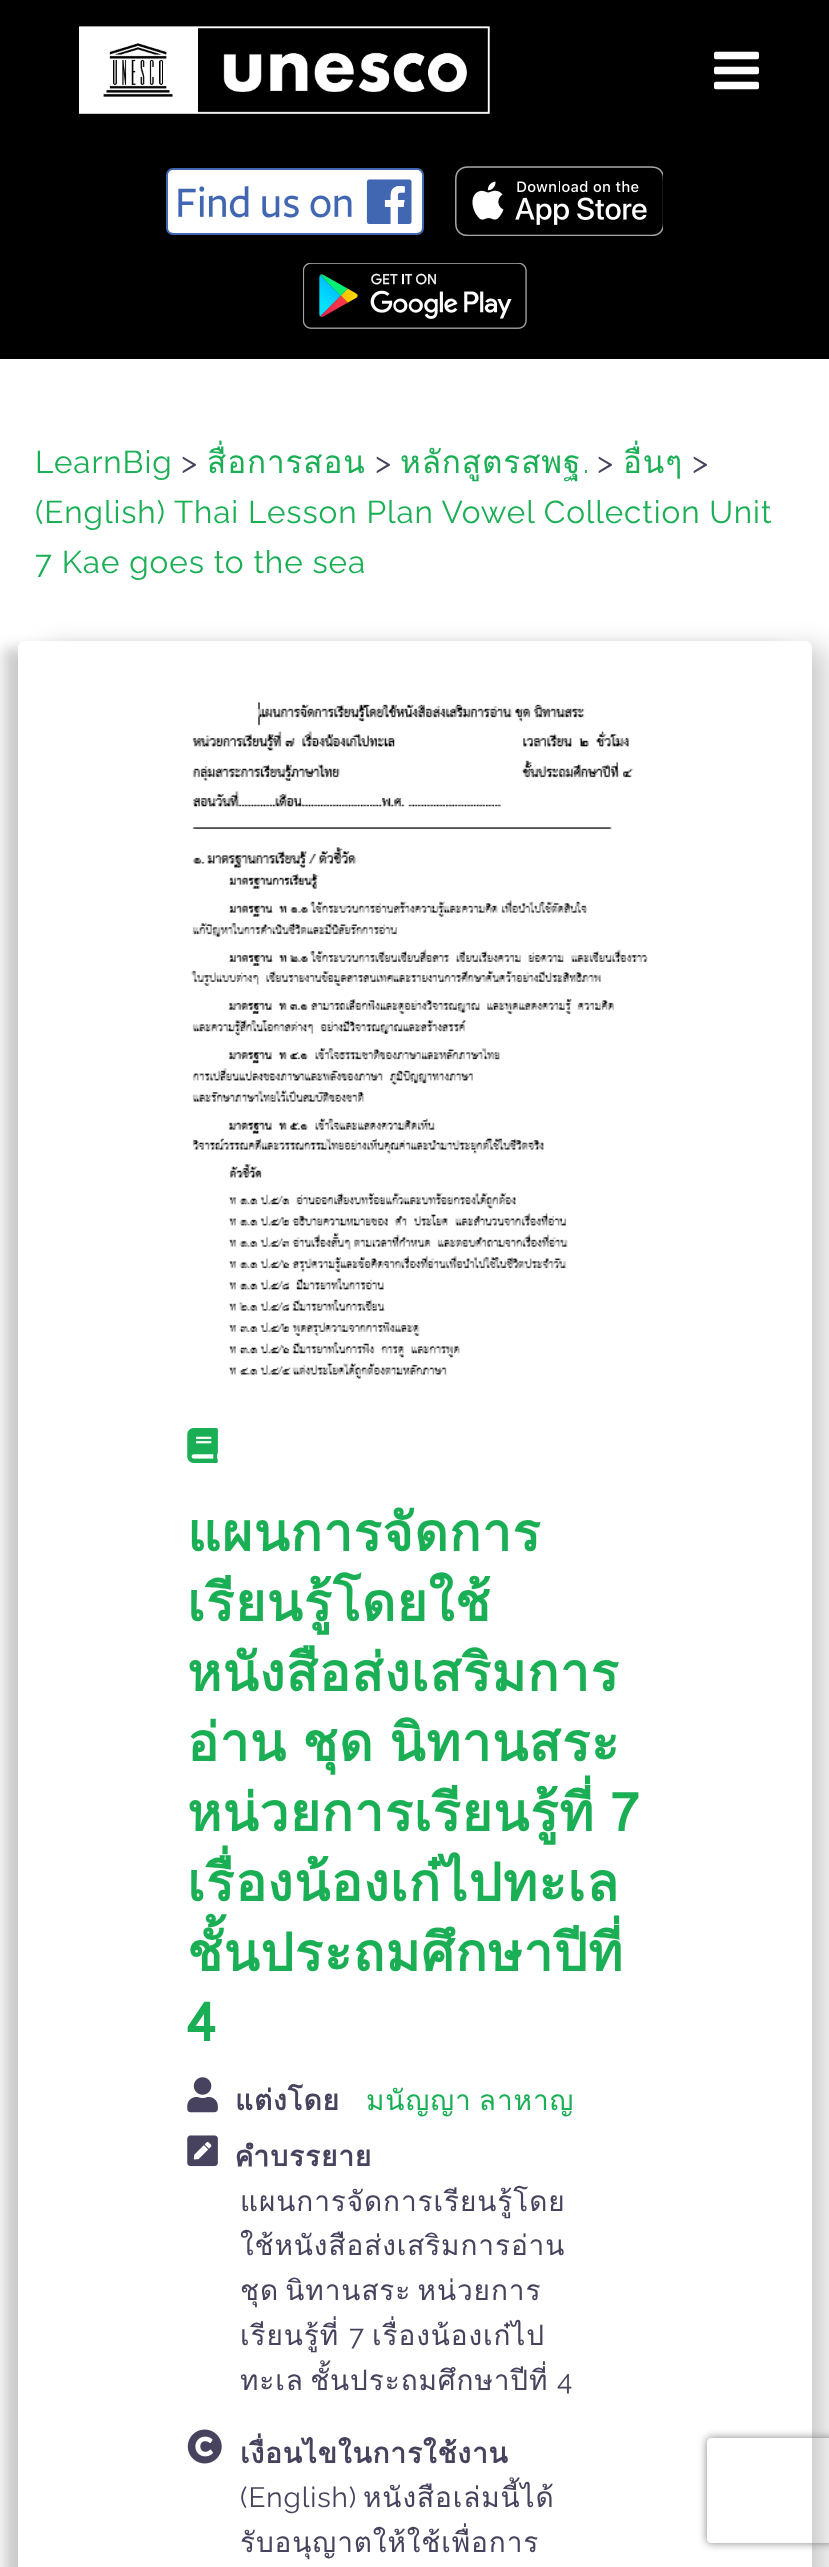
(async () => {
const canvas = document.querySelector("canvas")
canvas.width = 829
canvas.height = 2567
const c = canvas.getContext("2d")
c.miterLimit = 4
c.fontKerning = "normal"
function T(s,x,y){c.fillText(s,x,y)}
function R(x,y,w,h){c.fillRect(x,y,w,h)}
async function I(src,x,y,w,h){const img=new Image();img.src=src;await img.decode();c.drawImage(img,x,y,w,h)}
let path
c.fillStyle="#fff"
R(0,0,829,2567)
c.fillStyle="#000"
R(0,0,829,359)
c.fillStyle="#fff"
c.beginPath()
c.roundRect(167,169,256,65,6)
c.fill()
c.strokeStyle="#4267b2"
c.lineWidth=2
c.stroke()
await I("1.png",178,179,234,45)
await I("2.png",455,166,208,70)
await I("3.png",303,263,224,66)
await I("4.png",79,26,411,88)
await I("5.png",714,51,45,39)
c.letterSpacing="0.9px"
c.font="31.5px Raleway"
c.fillStyle="#1aaf54"
T("LearnBig",35,473)
c.fillStyle="#47425d"
T(">",181,473)
c.font="31.5px Loma"
c.fillStyle="#1aaf54"
T("สื่อการสอน",207,473)
c.font="31.5px Raleway"
c.fillStyle="#47425d"
T(">",375,473)
c.font="31.5px Loma"
c.fillStyle="#1aaf54"
T("หลักสูตรสพฐ",400,473)
c.font="31.5px Raleway"
T(".",583,473)
c.fillStyle="#47425d"
T(">",597,473)
c.font="31.5px Loma"
c.fillStyle="#1aaf54"
T("อื่นๆ",623,473)
c.font="31.5px Raleway"
c.fillStyle="#47425d"
T(">",692,473)
c.fillStyle="#1aaf54"
T("(English) Thai Lesson Plan Vowel Collection Unit",35,523)
T("7 Kae goes to the sea",35,573)
c.fillStyle="#00000033"
c.filter="blur(7px)"
c.beginPath()
c.rect(4,648,780,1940)
c.fill()
c.filter="none"
c.filter="blur(13px)"
c.beginPath()
c.rect(46,648,780,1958)
c.fill()
c.filter="none"
c.fillStyle="#fff"
path = new Path2D("M25 641h780c4 0 7 3 7 7v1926h-794v-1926c0-4 3-7 7-7z")
c.fill(path)
await I("6.png",191,702,457,677)
await I("7.png",187,1428,31,35)
c.font="bold 52.5px Loma"
c.fillStyle="#1aaf54"
T("แผนการจัดการ",187,1551)
T("เรียนรู้โดยใช้",187,1621)
T("หนังสือส่งเสริมการ",187,1691)
c.wordSpacing="-3px"
T("อ่าน ชุด นิทานสระ",187,1761)
T("หน่วยการเรียนรู้ที่ 7",187,1831)
c.wordSpacing="0px"
T("เรื่องน้องเก๋ไปทะเล",187,1901)
T("ชั้นประถมศึกษาปีที่",187,1971)
T("4",187,2041)
await I("8.png",187,2077,31,36)
c.font="bold 28px Loma"
c.fillStyle="#47425d"
T("แต่งโดย",235,2110)
c.wordSpacing="-3px"
c.font="28px Loma"
c.fillStyle="#1aaf54"
T("มนัญญา ลาหาญ",366,2110)
await I("9.png",187,2135,31,32)
c.wordSpacing="0px"
c.font="bold 28px Loma"
c.fillStyle="#47425d"
T("คำบรรยาย",235,2166)
c.font="28px Loma"
T("แผนการจัดการเรียนรู้โดย",240,2211)
T("ใช้หนังสือส่งเสริมการอ่าน",240,2255)
c.wordSpacing="-4px"
T("ชุด นิทานสระ หน่วยการ",240,2300)
c.wordSpacing="0px"
T("เรียนรู้ที่",240,2345)
c.font="28px Raleway"
T("7",349,2345)
c.font="28px Loma"
T("เรื่องน้องเก๋ไป",372,2345)
c.wordSpacing="-4px"
T("ทะเล ชั้นประถมศึกษาปีที่",240,2390)
c.wordSpacing="0px"
c.font="28px Raleway"
T("4",557,2390)
await I("10.png",187,2429,35,35)
c.font="bold 28px Loma"
T("เงื่อนไขในการใช้งาน",240,2463)
c.font="28px Raleway"
T("(English)",240,2507)
c.font="28px Loma"
T("หนังสือเล่มนี้ได้",363,2507)
T("รับอนุญาตให้ใช้เพื่อการ",240,2552)
c.save()
path = new Path2D("M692 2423h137v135h-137zm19 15h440c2 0 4 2 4 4v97c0 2-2 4-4 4h-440c-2 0-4-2-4-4v-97c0-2 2-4 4-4z")
c.clip(path,"evenodd")
c.fillStyle="#808080"
c.filter="blur(4.5px)"
c.beginPath()
c.roundRect(707,2438,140,105,4)
c.fill()
c.filter="none"
c.restore()
})()
